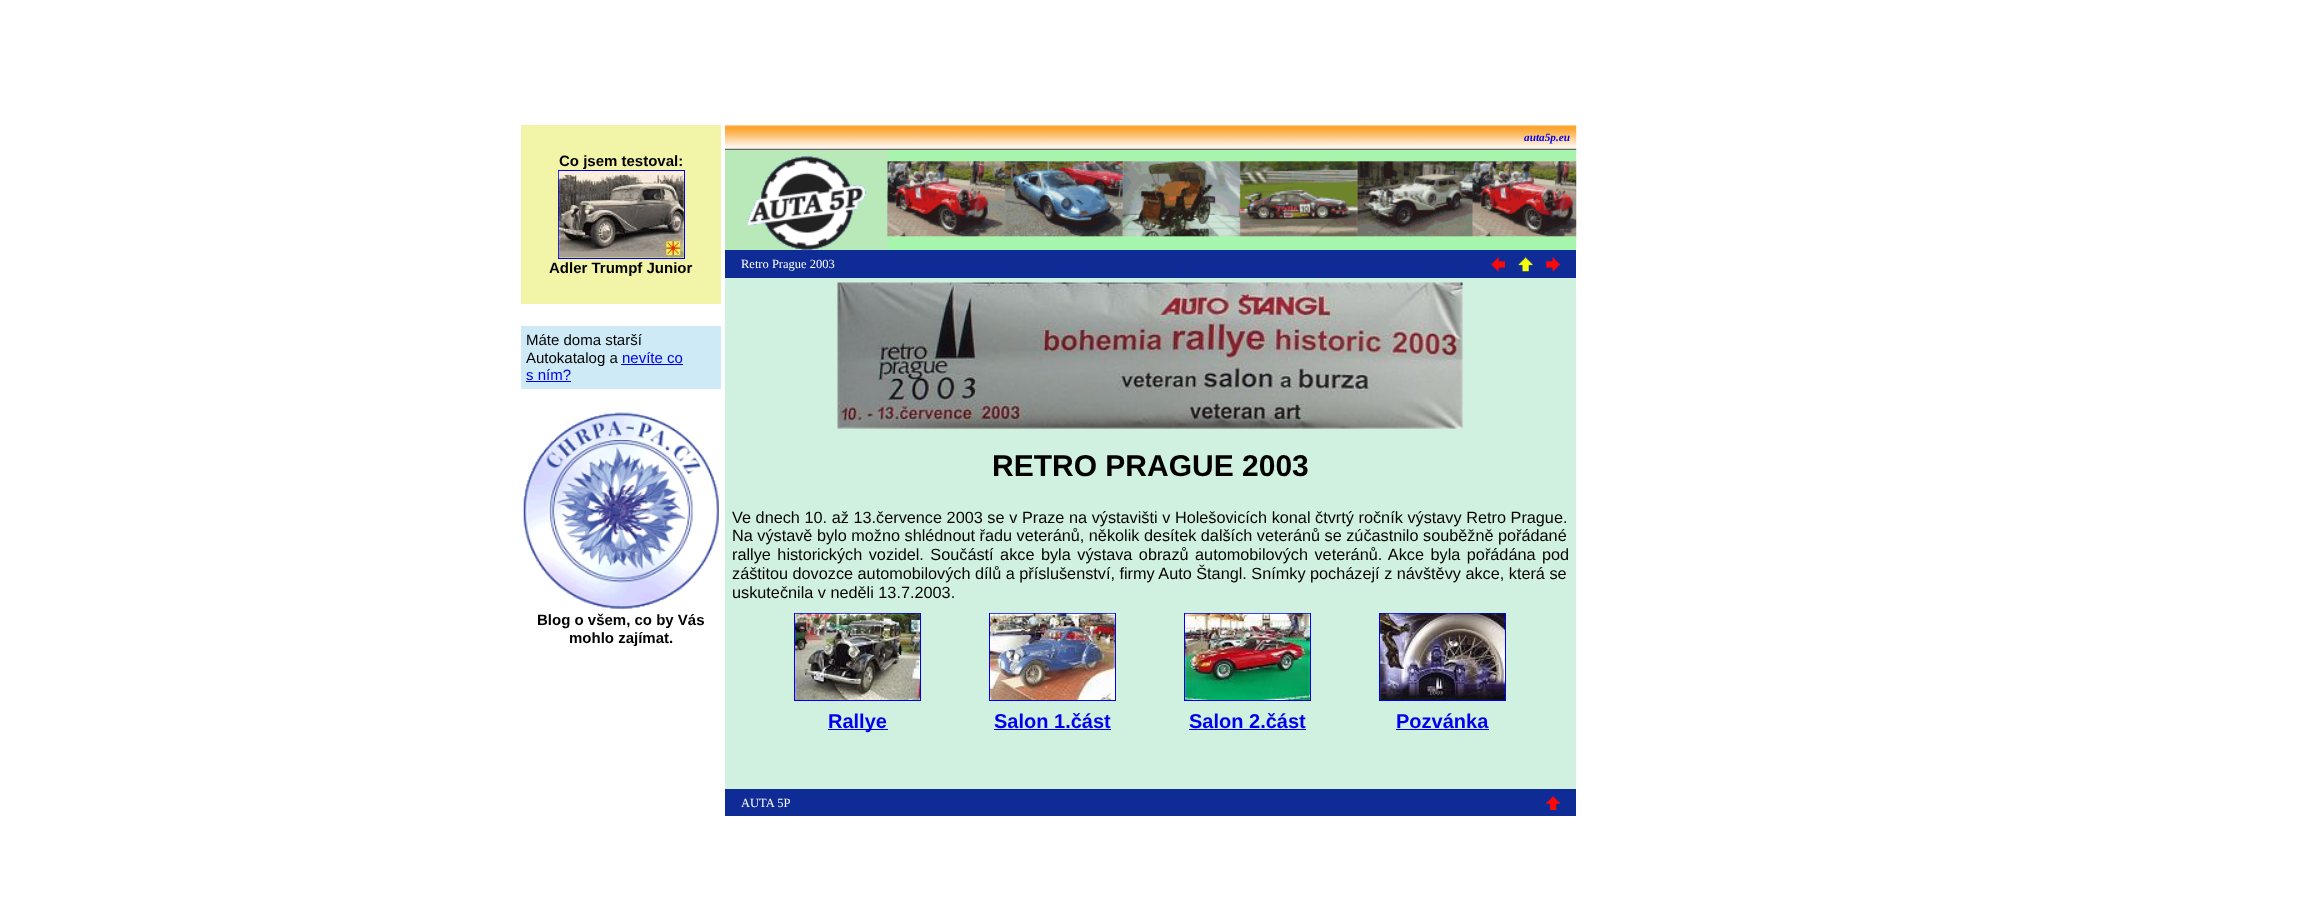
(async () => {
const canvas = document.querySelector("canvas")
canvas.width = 2299
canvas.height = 905
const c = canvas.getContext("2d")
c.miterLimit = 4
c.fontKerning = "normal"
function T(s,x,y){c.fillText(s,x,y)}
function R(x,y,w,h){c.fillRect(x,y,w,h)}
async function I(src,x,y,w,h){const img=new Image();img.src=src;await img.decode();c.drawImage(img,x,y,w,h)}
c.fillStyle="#fff"
R(0,0,2299,905)
c.fillStyle="#f2f5a7"
R(521,125,200,179)
c.font="bold 15px Liberation Sans"
c.fillStyle="#000"
T("Co jsem testoval:",559,166)
c.strokeStyle="#00e"
c.strokeRect(558.5,170.5,126,88)
await I("1.png",558,171,126,87)
T("Adler Trumpf Junior",549,273)
c.fillStyle="#ceeaf6"
R(521,326,200,63)
c.font="15px Liberation Sans"
c.fillStyle="#000"
T("Máte doma starší",526,345)
T("Autokatalog a",526,363)
c.fillStyle="#00e"
T("nevíte co",622,363)
R(621,364,62,1)
T("s ním?",526,380)
R(526,381,45,1)
await I("2.png",523,412,196,197)
c.font="bold 15px Liberation Sans"
c.fillStyle="#000"
T("Blog o všem, co by Vás",537,625)
T("mohlo zajímat.",569,643)
await I("3.png",725,125,852,25)
c.font="italic bold 11.25px Liberation Serif"
c.fillStyle="#00e"
T("auta5p.eu",1524,141)
c.fillStyle="#b9e9b9"
R(725,150,163,100)
c.fillStyle="#0e2b96"
R(725,250,851,28)
await I("4.png",747,156,120,95)
await I("5.png",887,150,690,100)
c.font="12.5px Liberation Serif"
c.fillStyle="#fff"
T("Retro Prague 2003",741,268)
await I("6.png",1491,257,14,15)
await I("7.png",1518,257,15,15)
await I("8.png",1546,257,14,15)
c.fillStyle="#d0f0e0"
R(725,278,851,511)
await I("9.png",837,282,626,147)
c.font="bold 30px Liberation Sans"
c.fillStyle="#000"
T("RETRO PRAGUE 2003",992,476)
c.wordSpacing="0.1px"
c.font="16.25px Liberation Sans"
T("Ve dnech 10. až 13.července 2003 se v Praze na výstavišti v Holešovicích konal čtvrtý ročník výstavy Retro Prague.",732,523)
c.wordSpacing="0px"
T("Na výstavě bylo možno shlédnout řadu veteránů, několik desítek dalších veteránů se zúčastnilo souběžně pořádané",732,541)
c.wordSpacing="2px"
T("rallye historických vozidel. Součástí akce byla výstava obrazů automobilových veteránů. Akce byla pořádána pod",732,560)
c.wordSpacing="0px"
T("záštitou dovozce automobilových dílů a příslušenství, firmy Auto Štangl. Snímky pocházejí z návštěvy akce, která se",732,579)
T("uskutečnila v neděli 13.7.2003.",732,598)
c.strokeRect(794.5,613.5,126,87)
await I("10.png",795,613,125,87)
c.strokeRect(989.5,613.5,126,87)
await I("11.png",990,613,125,87)
c.strokeRect(1184.5,613.5,126,87)
await I("12.png",1185,613,125,87)
c.strokeRect(1379.5,613.5,126,87)
await I("13.png",1380,613,125,87)
c.fillStyle="#00e"
R(828,729,60,1)
c.font="bold 20px Liberation Sans"
T("Rallye",828,728)
T("Salon 1.část",994,728)
R(994,729,117,1)
T("Salon 2.část",1189,728)
R(1189,729,117,1)
T("Pozvánka",1396,728)
R(1396,729,93,1)
c.fillStyle="#0e2b96"
R(725,789,851,27)
c.font="12.5px Liberation Serif"
c.fillStyle="#fff"
T("AUTA 5P",741,807)
await I("14.png",1546,796,14,14)
})()
